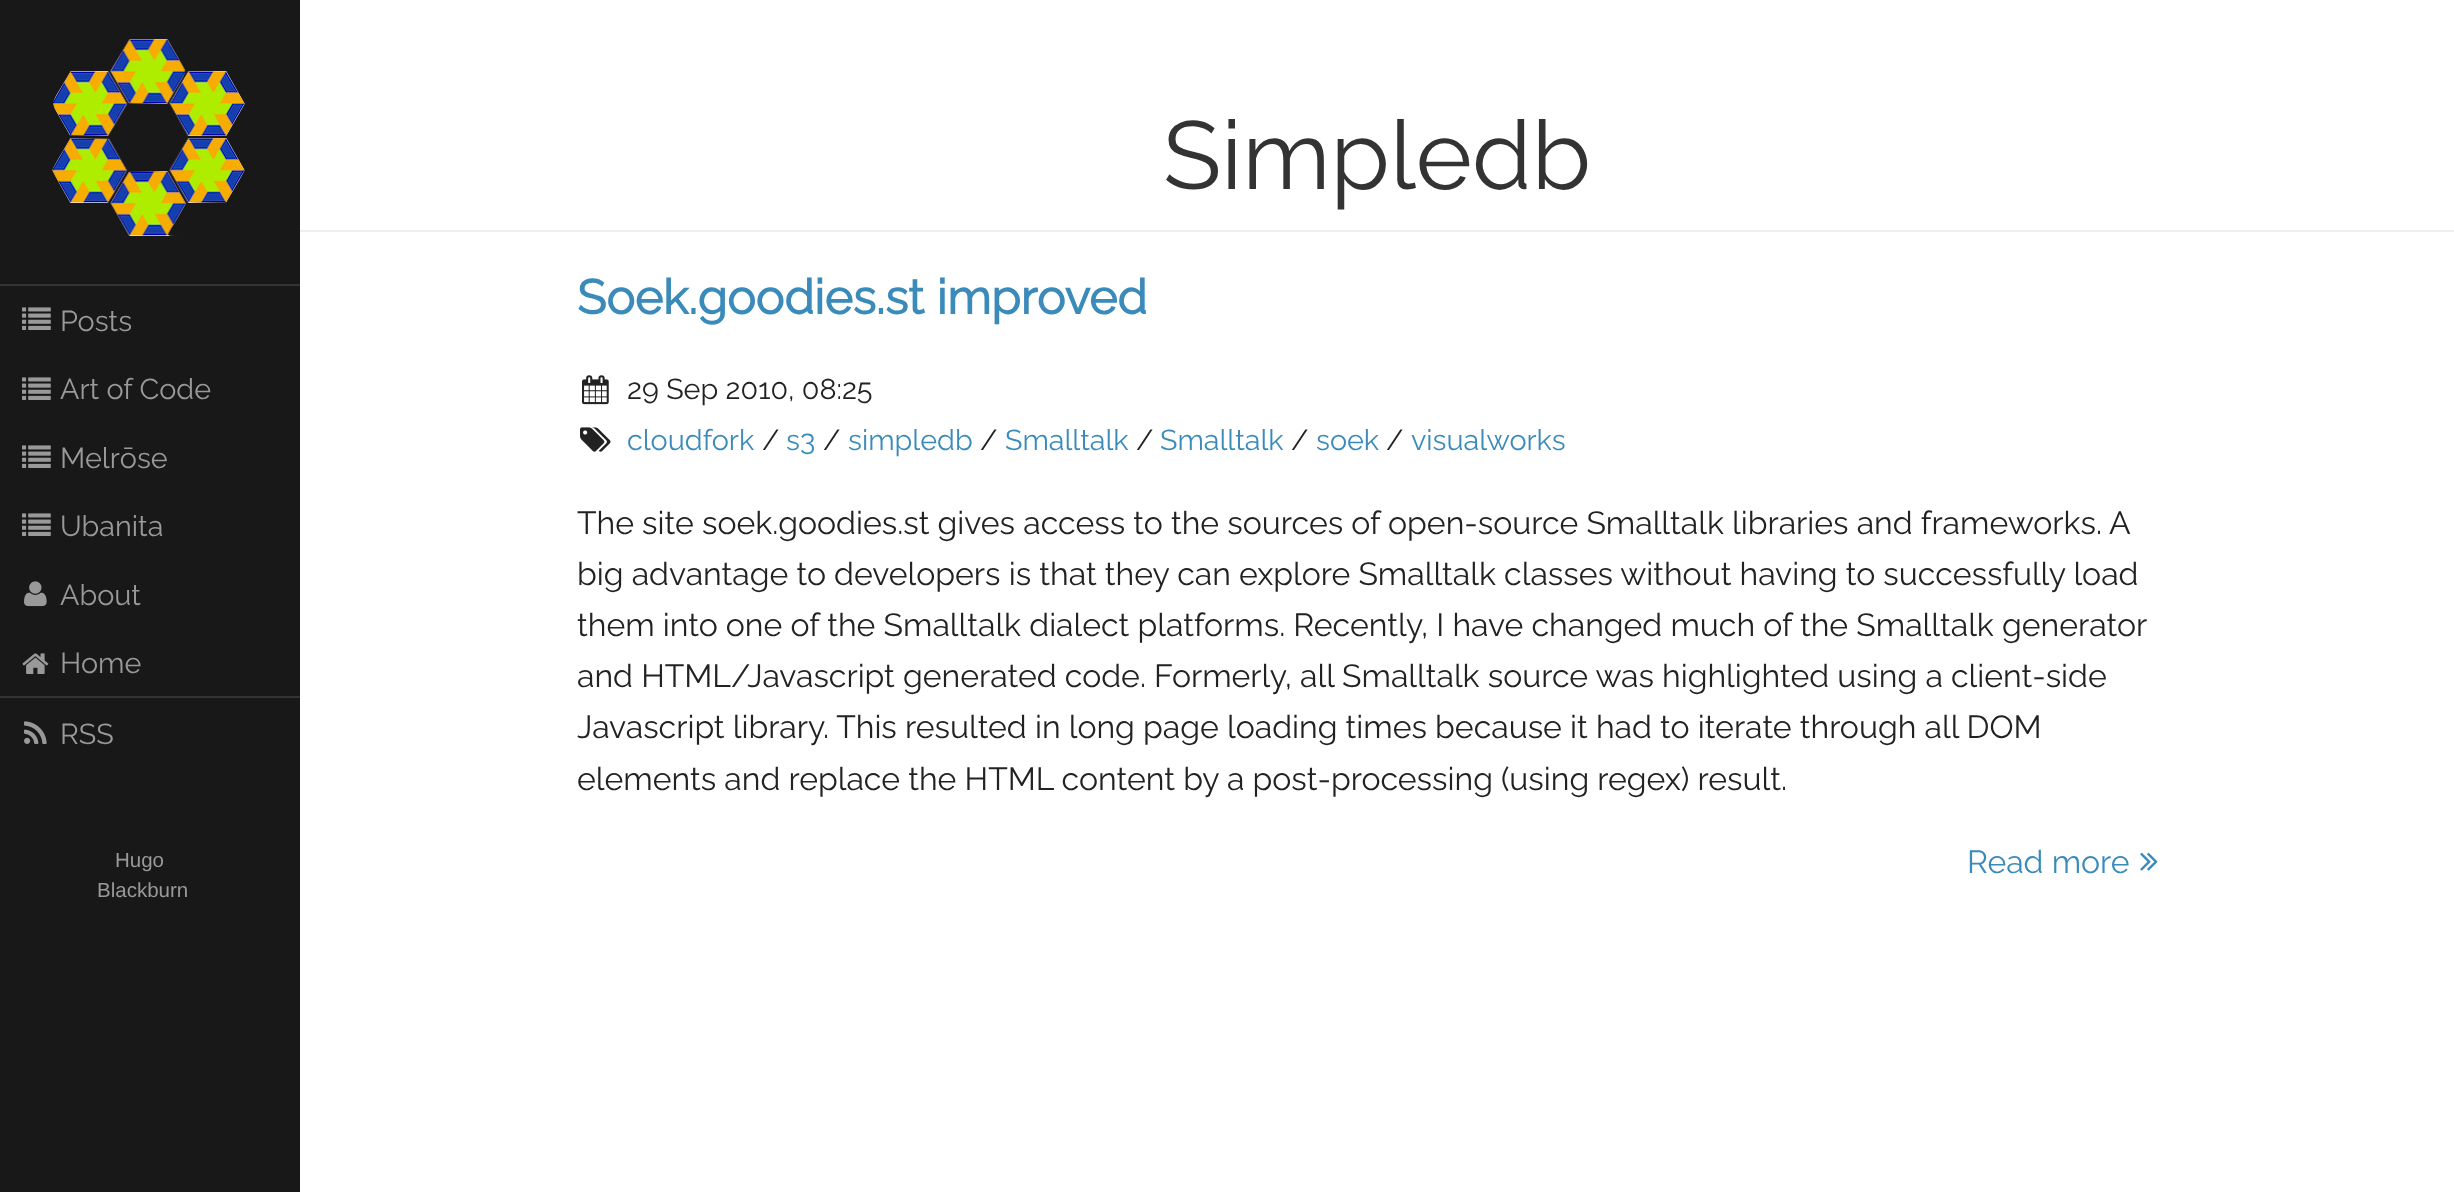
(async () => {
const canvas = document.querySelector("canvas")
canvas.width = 2454
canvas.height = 1192
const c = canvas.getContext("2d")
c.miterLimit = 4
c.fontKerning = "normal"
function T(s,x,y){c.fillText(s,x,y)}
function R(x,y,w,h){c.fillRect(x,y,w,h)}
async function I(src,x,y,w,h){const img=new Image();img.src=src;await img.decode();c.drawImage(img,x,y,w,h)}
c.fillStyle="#fff"
R(0,0,2454,1192)
c.fillStyle="#191818"
R(0,0,300,1192)
await I("1.png",52,39,193,197)
c.fillStyle="#333"
R(0,284,300,2)
await I("2.png",22,307,29,23)
c.font="100 28.75px Raleway"
c.fillStyle="#999"
T("Posts",60,331)
await I("2.png",22,377,29,23)
T("Art of Code",60,399)
await I("2.png",22,445,29,23)
T("Melrōse",60,468)
await I("2.png",22,513,29,23)
T("Ubanita",60,536)
await I("3.png",24,581,23,26)
T("About",60,605)
await I("4.png",22,653,27,21)
T("Home",60,673)
c.fillStyle="#333"
R(0,696,300,2)
await I("5.png",24,721,23,23)
c.fillStyle="#999"
T("RSS",60,744)
c.font="20.5px Liberation Sans"
T("Hugo",115,867)
T("Blackburn",97,897)
c.fillStyle="#eee"
R(300,230,2154,2)
c.font="100 96px Raleway"
c.fillStyle="#333"
T("Simpledb",1163,189)
c.font="bold 48px Raleway"
c.fillStyle="#3b8bba"
T("Soek.goodies.st improved",577,314)
await I("6.png",582,375,27,30)
c.font="100 28.75px Raleway"
c.fillStyle="#222"
T("29 Sep 2010, 08:25",627,399)
await I("7.png",580,427,31,25)
c.fillStyle="#3b8bba"
T("cloudfork",627,450)
c.fillStyle="#222"
T("/",762,450)
c.fillStyle="#3b8bba"
T("s3",786,450)
c.fillStyle="#222"
T("/",823,450)
c.fillStyle="#3b8bba"
T("simpledb",848,450)
c.fillStyle="#222"
T("/",980,450)
c.fillStyle="#3b8bba"
T("Smalltalk",1005,450)
c.fillStyle="#222"
T("/",1136,450)
c.fillStyle="#3b8bba"
T("Smalltalk",1160,450)
c.fillStyle="#222"
T("/",1291,450)
c.fillStyle="#3b8bba"
T("soek",1316,450)
c.fillStyle="#222"
T("/",1386,450)
c.fillStyle="#3b8bba"
T("visualworks",1411,450)
c.font="100 32px Raleway"
c.fillStyle="#222"
T("The site soek.goodies.st gives access to the sources of open-source Smalltalk libraries and frameworks. A",577,534)
T("big advantage to developers is that they can explore Smalltalk classes without having to successfully load",577,585)
T("them into one of the Smalltalk dialect platforms. Recently, I have changed much of the Smalltalk generator",577,636)
T("and HTML/Javascript generated code. Formerly, all Smalltalk source was highlighted using a client-side",577,687)
T("Javascript library. This resulted in long page loading times because it had to iterate through all DOM",577,738)
T("elements and replace the HTML content by a post-processing (using regex) result.",577,790)
c.fillStyle="#3b8bba"
T("Read more",1967,873)
await I("8.png",2140,852,18,19)
})()
